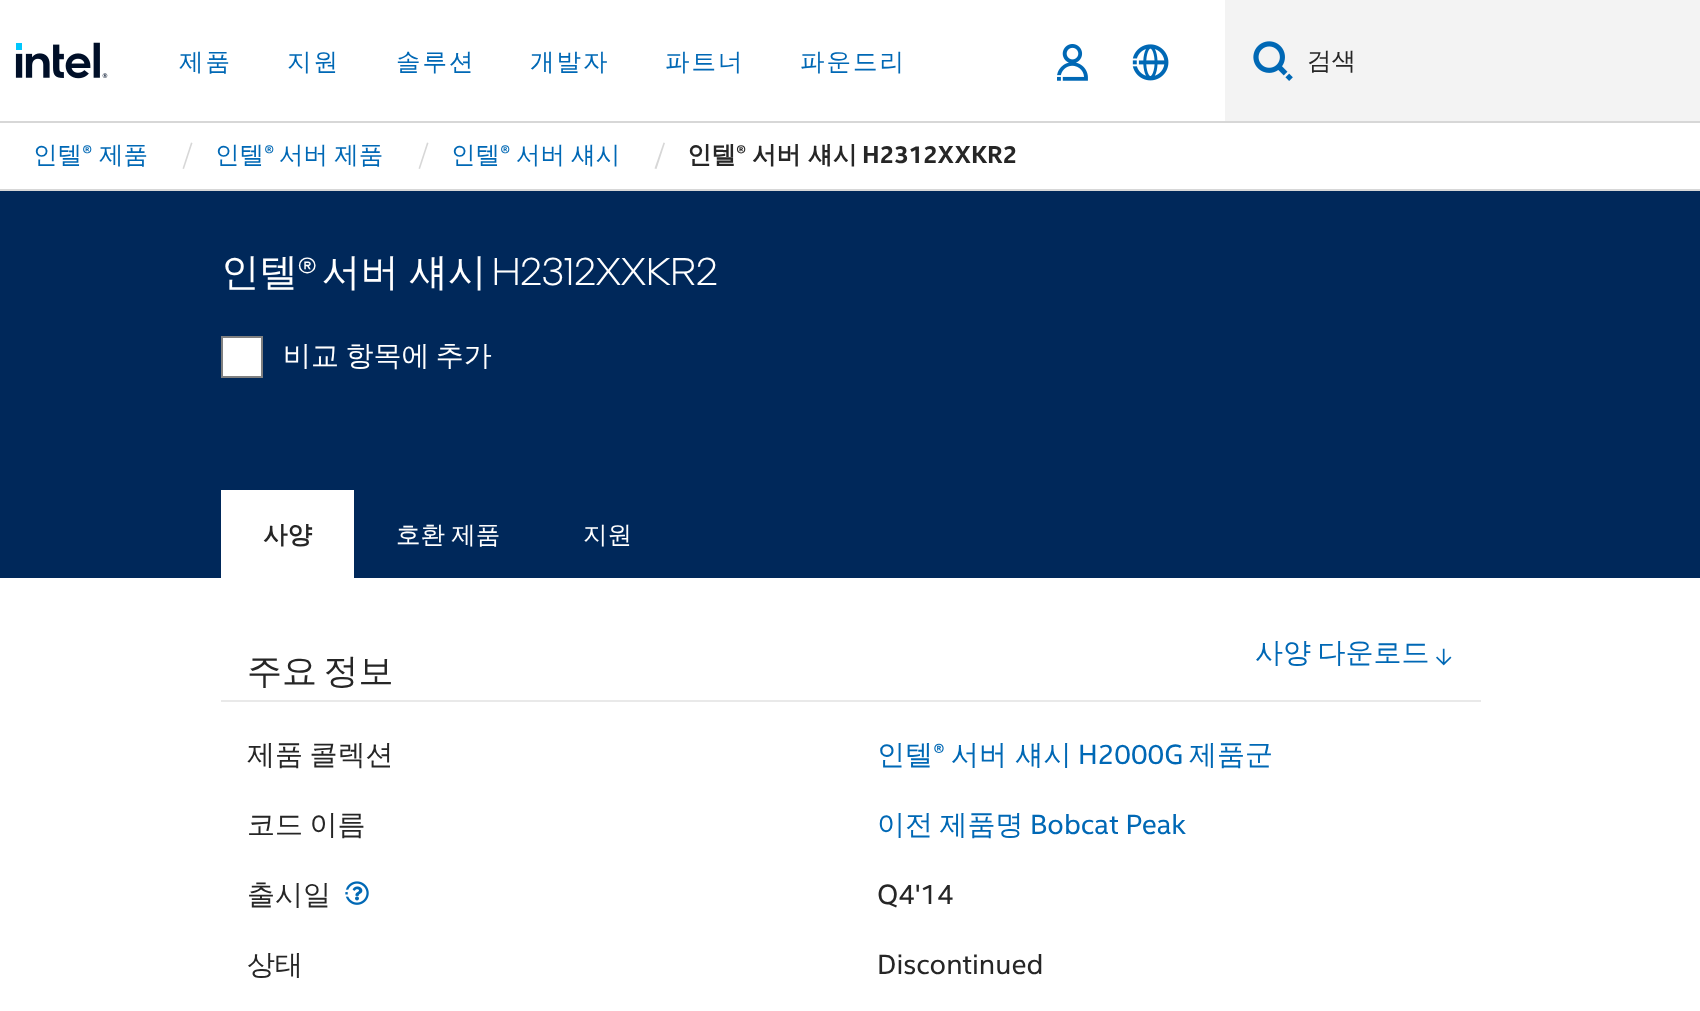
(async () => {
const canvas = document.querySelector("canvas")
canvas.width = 1700
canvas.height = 1011
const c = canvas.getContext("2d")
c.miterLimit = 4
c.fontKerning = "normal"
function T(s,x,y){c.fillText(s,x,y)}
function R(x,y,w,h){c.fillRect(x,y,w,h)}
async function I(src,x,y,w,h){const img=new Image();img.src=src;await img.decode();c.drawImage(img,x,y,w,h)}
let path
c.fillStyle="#fff"
R(0,0,1700,1011)
c.fillStyle="#d7d7d7"
R(0,121,1700,2)
await I("1.png",15,42,93,37)
c.letterSpacing="2px"
c.font="500 24.5px WenQuanYi Zen Hei"
c.fillStyle="#0068b5"
T("제품",179,70)
T("지원",287,70)
T("솔루션",396,70)
T("개발자",530,70)
T("파트너",665,70)
T("파운드리",800,70)
await I("2.png",1057,44,31,37)
await I("3.png",1132,44,37,37)
c.fillStyle="#f3f3f3"
R(1225,0,475,121)
await I("4.png",1253,41,40,40)
c.letterSpacing="0px"
c.fillStyle="#262626"
T("검색",1307,69)
c.fillStyle="#d7d7d7"
R(0,189,1700,2)
c.fillStyle="#0068b5"
T("인텔",33,163)
c.font="24.5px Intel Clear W"
T("®",82,163)
c.font="500 24.5px WenQuanYi Zen Hei"
T("제품",99,163)
c.fillStyle="#d7d7d7"
path = new Path2D("M191 142.5l1.5 .5l-8.5 26l-1.5-.5z")
c.fill(path)
c.fillStyle="#0068b5"
T("인텔",215,163)
c.font="24.5px Intel Clear W"
T("®",264,163)
c.wordSpacing="-1px"
c.font="500 24.5px WenQuanYi Zen Hei"
T("서버 제품",279,163)
c.fillStyle="#d7d7d7"
path = new Path2D("M427 142.5l1.5 .5l-8.5 26l-1.5-.5z")
c.fill(path)
c.wordSpacing="0px"
c.fillStyle="#0068b5"
T("인텔",451,163)
c.font="24.5px Intel Clear W"
T("®",500,163)
c.wordSpacing="-1px"
c.font="500 24.5px WenQuanYi Zen Hei"
T("서버 섀시",516,163)
c.fillStyle="#d7d7d7"
path = new Path2D("M663.5 142.5l1.5 .5l-8.5 26l-2-.5z")
c.fill(path)
c.wordSpacing="0px"
c.font="bold 24.5px WenQuanYi Zen Hei"
c.fillStyle="#262626"
T("인텔",687,163)
c.font="bold 24.5px Intel Clear W"
T("®",736,163)
c.font="bold 24.5px WenQuanYi Zen Hei"
T("서버 섀시",752,163)
c.font="bold 24.5px Intel Clear W"
T("H2312XXKR2",862,163)
c.fillStyle="#00285a"
R(0,191,1700,387)
c.font="500 38.5px WenQuanYi Zen Hei"
c.fillStyle="#fff"
T("인텔",221,285)
c.font="300 38.5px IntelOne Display"
T("®",298,285)
c.wordSpacing="-1px"
c.font="500 38.5px WenQuanYi Zen Hei"
T("서버 섀시",322,285)
c.wordSpacing="0px"
c.font="300 38.5px IntelOne Display"
T("H2312XXKR2",492,285)
c.beginPath()
c.rect(222,337,40,40)
c.fill()
c.strokeStyle="#808080"
c.lineWidth=2
c.stroke()
c.wordSpacing="-2px"
c.font="500 28px WenQuanYi Zen Hei"
T("비교 항목에 추가",283,365)
R(221,490,133,88)
c.wordSpacing="0px"
c.font="bold 24.5px WenQuanYi Zen Hei"
c.fillStyle="#262626"
T("사양",263,543)
c.wordSpacing="-1px"
c.font="500 24.5px WenQuanYi Zen Hei"
c.fillStyle="#fff"
T("호환 제품",396,543)
c.wordSpacing="0px"
T("지원",583,543)
c.wordSpacing="-2px"
c.font="500 28px WenQuanYi Zen Hei"
c.fillStyle="#0068b5"
T("사양 다운로드",1255,662)
await I("5.png",1436,648,16,18)
c.wordSpacing="-4px"
c.font="500 35px WenQuanYi Zen Hei"
c.fillStyle="#262626"
T("주요 정보",247,683)
c.fillStyle="#e9e9e9"
R(221,700,1260,2)
c.wordSpacing="-2px"
c.font="500 28px WenQuanYi Zen Hei"
c.fillStyle="#262626"
T("제품 콜렉션",247,764)
c.wordSpacing="0px"
c.fillStyle="#0068b5"
T("인텔",877,764)
c.font="28px Intel Clear W"
T("®",933,764)
c.font="500 28px WenQuanYi Zen Hei"
T("서버 섀시",951,764)
c.font="28px Intel Clear W"
T("H2000G",1078,764)
c.font="500 28px WenQuanYi Zen Hei"
T("제품군",1189,764)
c.wordSpacing="-2px"
c.fillStyle="#262626"
T("코드 이름",247,834)
c.fillStyle="#0068b5"
T("이전 제품명",877,834)
c.wordSpacing="0px"
c.font="28px Intel Clear W"
T("Bobcat Peak",1030,834)
c.font="500 28px WenQuanYi Zen Hei"
c.fillStyle="#262626"
T("출시일",247,904)
await I("6.png",345,881,24,24)
c.font="28px Intel Clear W"
T("Q4'14",877,904)
c.font="500 28px WenQuanYi Zen Hei"
T("상태",247,974)
c.font="28px Intel Clear W"
T("Discontinued",877,974)
})()
